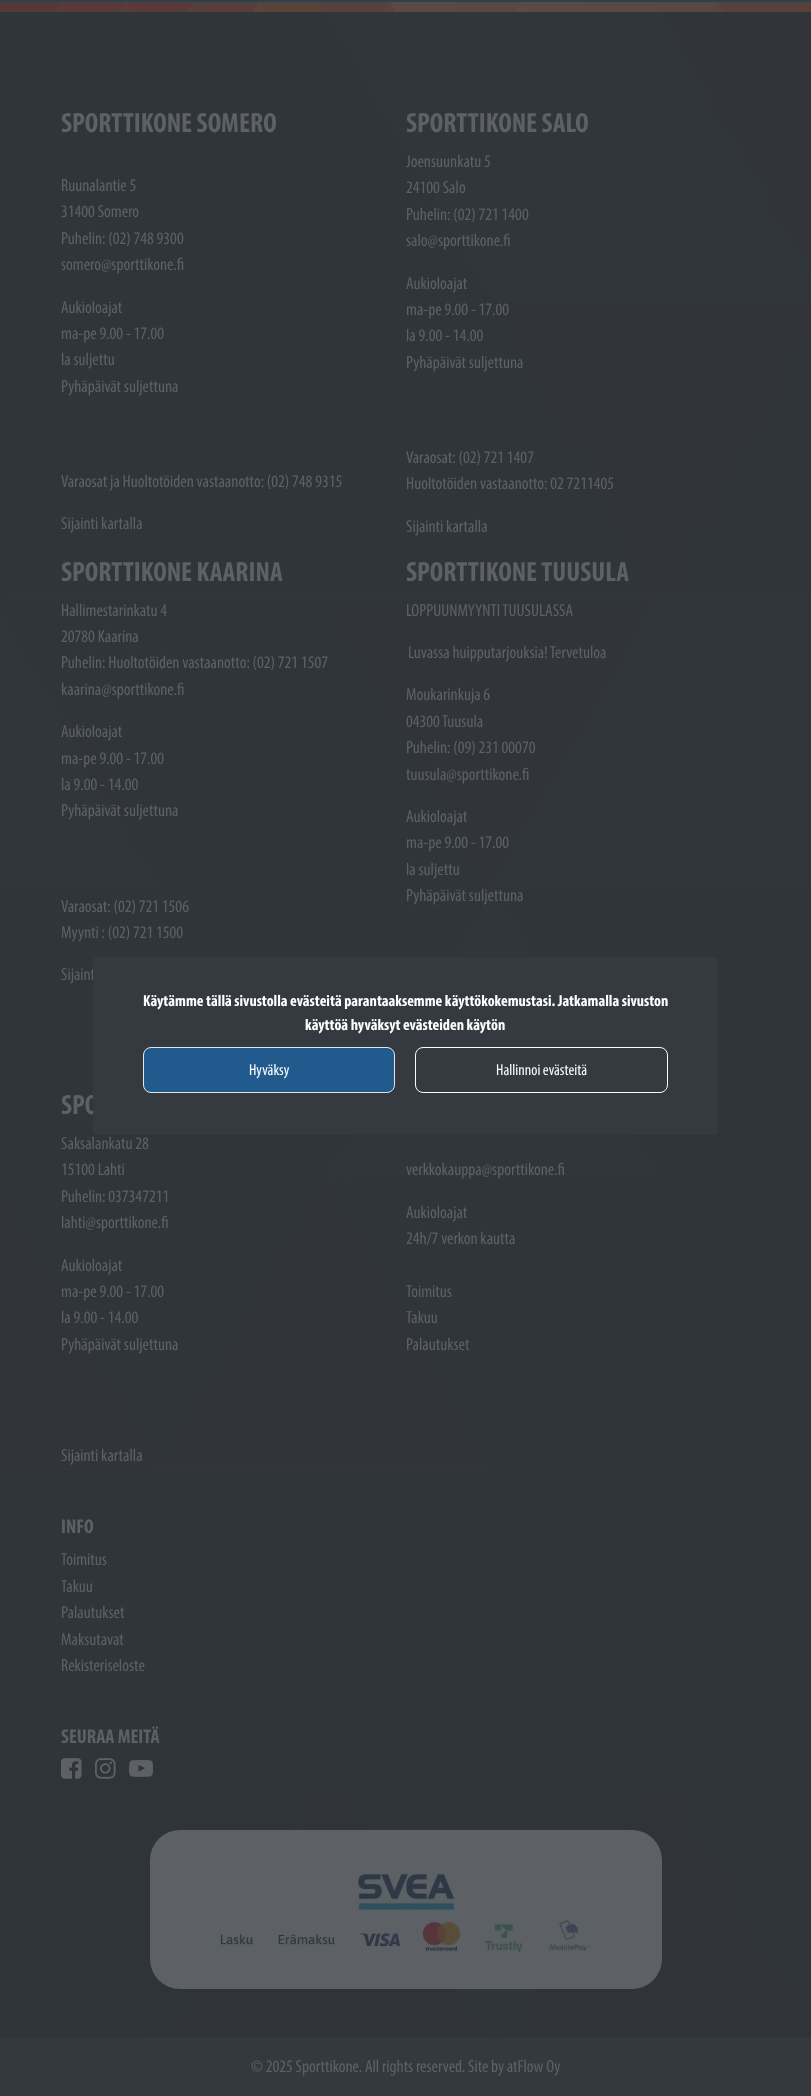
(async () => {
const canvas = document.querySelector("canvas")
canvas.width = 811
canvas.height = 2096
const c = canvas.getContext("2d")
c.miterLimit = 4
c.fontKerning = "normal"
function T(s,x,y){c.fillText(s,x,y)}
function R(x,y,w,h){c.fillRect(x,y,w,h)}
function Q(x,y,w,h,r){c.beginPath();c.roundRect(x,y,w,h,r);c.fill()}
async function I(src,x,y,w,h){const img=new Image();img.src=src;await img.decode();c.drawImage(img,x,y,w,h)}
c.fillStyle="#2a4150"
R(0,0,811,2096)
await I("1.png",0,2,811,10)
await I("2.png",0,12,811,2025)
c.font="bold 28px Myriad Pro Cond"
c.fillStyle="#5d6166"
T("SPORTTIKONE SOMERO",61,132)
c.font="17.6px Myriad Pro Cond"
T("Ruunalantie 5",61,191)
T("31400 Somero",61,217)
T("Puhelin: (02) 748 9300",61,244)
T("somero@sporttikone.fi",61,270)
T("Aukioloajat",61,313)
T("ma-pe 9.00 - 17.00",61,339)
T("la suljettu",61,365)
T("Pyhäpäivät suljettuna",61,392)
T("Varaosat ja Huoltotöiden vastaanotto: (02) 748 9315",61,487)
T("Sijainti kartalla",61,529)
c.font="bold 28px Myriad Pro Cond"
T("SPORTTIKONE SALO",406,132)
c.font="17.6px Myriad Pro Cond"
T("Joensuunkatu 5",406,167)
T("24100 Salo",406,193)
T("Puhelin: (02) 721 1400",406,220)
T("salo@sporttikone.fi",406,246)
T("Aukioloajat",406,289)
T("ma-pe 9.00 - 17.00",406,315)
T("la 9.00 - 14.00",406,341)
T("Pyhäpäivät suljettuna",406,368)
T("Varaosat: (02) 721 1407",406,463)
T("Huoltotöiden vastaanotto: 02 7211405",406,489)
T("Sijainti kartalla",406,532)
c.font="bold 28px Myriad Pro Cond"
T("SPORTTIKONE KAARINA",61,581)
c.font="17.6px Myriad Pro Cond"
T("Hallimestarinkatu 4",61,616)
T("20780 Kaarina",61,642)
T("Puhelin: Huoltotöiden vastaanotto: (02) 721 1507",61,668)
T("kaarina@sporttikone.fi",61,695)
T("Aukioloajat",61,737)
T("ma-pe 9.00 - 17.00",61,764)
T("la 9.00 - 14.00",61,790)
T("Pyhäpäivät suljettuna",61,816)
T("Varaosat: (02) 721 1506",61,912)
T("Myynti : (02) 721 1500",61,938)
T("Sijaint",61,980)
c.font="bold 28px Myriad Pro Cond"
T("SPORTTIKONE TUUSULA",406,581)
c.font="17.6px Myriad Pro Cond"
T("LOPPUUNMYYNTI TUUSULASSA",406,616)
T("Luvassa huipputarjouksia! Tervetuloa",408,658)
T("Moukarinkuja 6",406,700)
T("04300 Tuusula",406,727)
T("Puhelin: (09) 231 00070",406,753)
T("tuusula@sporttikone.fi",406,780)
T("Aukioloajat",406,822)
T("ma-pe 9.00 - 17.00",406,848)
T("la suljettu",406,875)
T("Pyhäpäivät suljettuna",406,901)
c.font="bold 28px Myriad Pro Cond"
T("SPO",61,1114)
c.font="17.6px Myriad Pro Cond"
T("Saksalankatu 28",61,1149)
T("15100 Lahti",61,1175)
T("Puhelin: 037347211",61,1202)
T("lahti@sporttikone.fi",61,1228)
T("Aukioloajat",61,1271)
T("ma-pe 9.00 - 17.00",61,1297)
T("la 9.00 - 14.00",61,1323)
T("Pyhäpäivät suljettuna",61,1350)
T("Sijainti kartalla",61,1461)
T("verkkokauppa@sporttikone.fi",406,1175)
T("Aukioloajat",406,1218)
T("24h/7 verkon kautta",406,1244)
T("Toimitus",406,1297)
T("Takuu",406,1323)
T("Palautukset",406,1350)
c.font="bold 20px Myriad Pro Cond"
T("INFO",61,1533)
c.font="17.6px Myriad Pro Cond"
T("Toimitus",61,1565)
T("Takuu",61,1592)
T("Palautukset",61,1618)
T("Maksutavat",61,1645)
T("Rekisteriseloste",61,1671)
c.font="bold 20px Myriad Pro Cond"
T("SEURAA MEITÄ",61,1743)
await I("3.png",61,1758,21,21)
await I("4.png",95,1758,21,21)
await I("5.png",129,1760,24,17)
Q(150,1830,512,159,30)
await I("6.png",217,1869,376,85)
c.fillStyle="#34393d"
R(0,2037,811,59)
c.font="17.6px Myriad Pro Cond"
c.fillStyle="#5d6166"
T("© 2025 Sporttikone. All rights reserved. Site by atFlow Oy",251,2072)
c.fillStyle="#343a40"
Q(93,957,625,178,4)
c.font="bold 16px Myriad Pro Cond"
c.fillStyle="#fff"
T("Käytämme tällä sivustolla evästeitä parantaaksemme käyttökokemustasi. Jatkamalla sivuston",143,1006)
T("käyttöä hyväksyt evästeiden käytön",305,1030)
c.fillStyle="#215b8e"
c.beginPath()
c.roundRect(143.5,1047.5,251,45,7.5)
c.fill()
c.strokeStyle="#e2e6ea"
c.stroke()
c.font="16px Myriad Pro Cond"
c.fillStyle="#fff"
T("Hyväksy",249,1075)
c.beginPath()
c.roundRect(415.5,1047.5,252,45,7.5)
c.strokeStyle="#f8f9fa"
c.stroke()
c.fillStyle="#f8f9fa"
T("Hallinnoi evästeitä",496,1075)
})()
